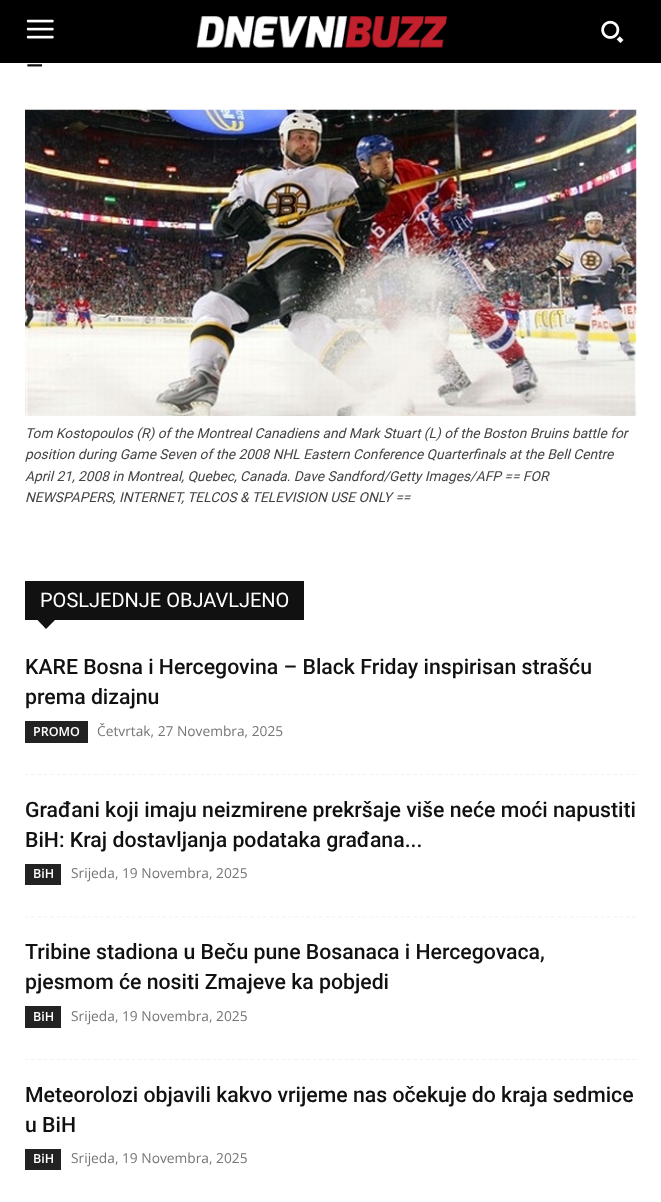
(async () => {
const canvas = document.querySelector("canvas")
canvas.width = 661
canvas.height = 1202
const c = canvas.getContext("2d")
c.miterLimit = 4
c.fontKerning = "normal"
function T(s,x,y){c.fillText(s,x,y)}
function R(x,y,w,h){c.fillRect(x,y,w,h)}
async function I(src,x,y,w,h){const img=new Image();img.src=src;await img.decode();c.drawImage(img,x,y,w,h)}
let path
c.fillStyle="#fff"
R(0,0,661,1202)
c.fillStyle="#000"
R(0,0,661,63)
await I("1.png",26,19,28,20)
await I("2.png",196,16,251,32)
await I("3.png",601,20,23,23)
c.font="30px Roboto"
c.fillStyle="#111"
T("–",25,76)
await I("4.png",25,109,612,307)
c.font="italic 13.75px Roboto"
c.fillStyle="#444"
T("Tom Kostopoulos (R) of the Montreal Canadiens and Mark Stuart (L) of the Boston Bruins battle for",25,438)
T("position during Game Seven of the 2008 NHL Eastern Conference Quarterfinals at the Bell Centre",25,459)
T("April 21, 2008 in Montreal, Quebec, Canada. Dave Sandford/Getty Images/AFP == FOR",25,481)
T("NEWSPAPERS, INTERNET, TELCOS & TELEVISION USE ONLY ==",25,502)
c.fillStyle="#111"
R(25,581,279,39)
c.font="20px Roboto"
c.fillStyle="#fff"
T("POSLJEDNJE OBJAVLJENO",40,607)
c.fillStyle="#111"
path = new Path2D("M37.5 620h17.5l-9 9z")
c.fill(path)
path = new Path2D("M25 774.5h611")
c.strokeStyle="#f2f2f2"
c.lineWidth=1.2
c.setLineDash([3.75,2.51])
c.stroke(path)
c.font="500 21.25px Roboto"
T("KARE Bosna i Hercegovina – Black Friday inspirisan strašću",25,674)
T("prema dizajnu",25,704)
c.fillStyle="#222"
R(25,721,63,22)
c.font="600 12.5px Open Sans"
c.fillStyle="#fff"
T("PROMO",33,736)
c.font="13.75px Open Sans"
c.fillStyle="#767676"
T("Četvrtak, 27 Novembra, 2025",97,736)
path = new Path2D("M25 917h611")
c.stroke(path)
c.font="500 21.25px Roboto"
c.fillStyle="#111"
T("Građani koji imaju neizmirene prekršaje više neće moći napustiti",25,817)
T("BiH: Kraj dostavljanja podataka građana...",25,847)
c.fillStyle="#222"
R(25,864,36,21)
c.font="600 12.5px Open Sans"
c.fillStyle="#fff"
T("BiH",33,878)
c.font="13.75px Open Sans"
c.fillStyle="#767676"
T("Srijeda, 19 Novembra, 2025",71,878)
path = new Path2D("M25 1059.5h611")
c.stroke(path)
c.font="500 21.25px Roboto"
c.fillStyle="#111"
T("Tribine stadiona u Beču pune Bosanaca i Hercegovaca,",25,959)
T("pjesmom će nositi Zmajeve ka pobjedi",25,989)
c.fillStyle="#222"
R(25,1006,36,22)
c.font="600 12.5px Open Sans"
c.fillStyle="#fff"
T("BiH",33,1021)
c.font="13.75px Open Sans"
c.fillStyle="#767676"
T("Srijeda, 19 Novembra, 2025",71,1021)
c.font="500 21.25px Roboto"
c.fillStyle="#111"
T("Meteorolozi objavili kakvo vrijeme nas očekuje do kraja sedmice",25,1102)
T("u BiH",25,1132)
c.fillStyle="#222"
R(25,1149,36,21)
c.font="600 12.5px Open Sans"
c.fillStyle="#fff"
T("BiH",33,1163)
c.font="13.75px Open Sans"
c.fillStyle="#767676"
T("Srijeda, 19 Novembra, 2025",71,1163)
})()
